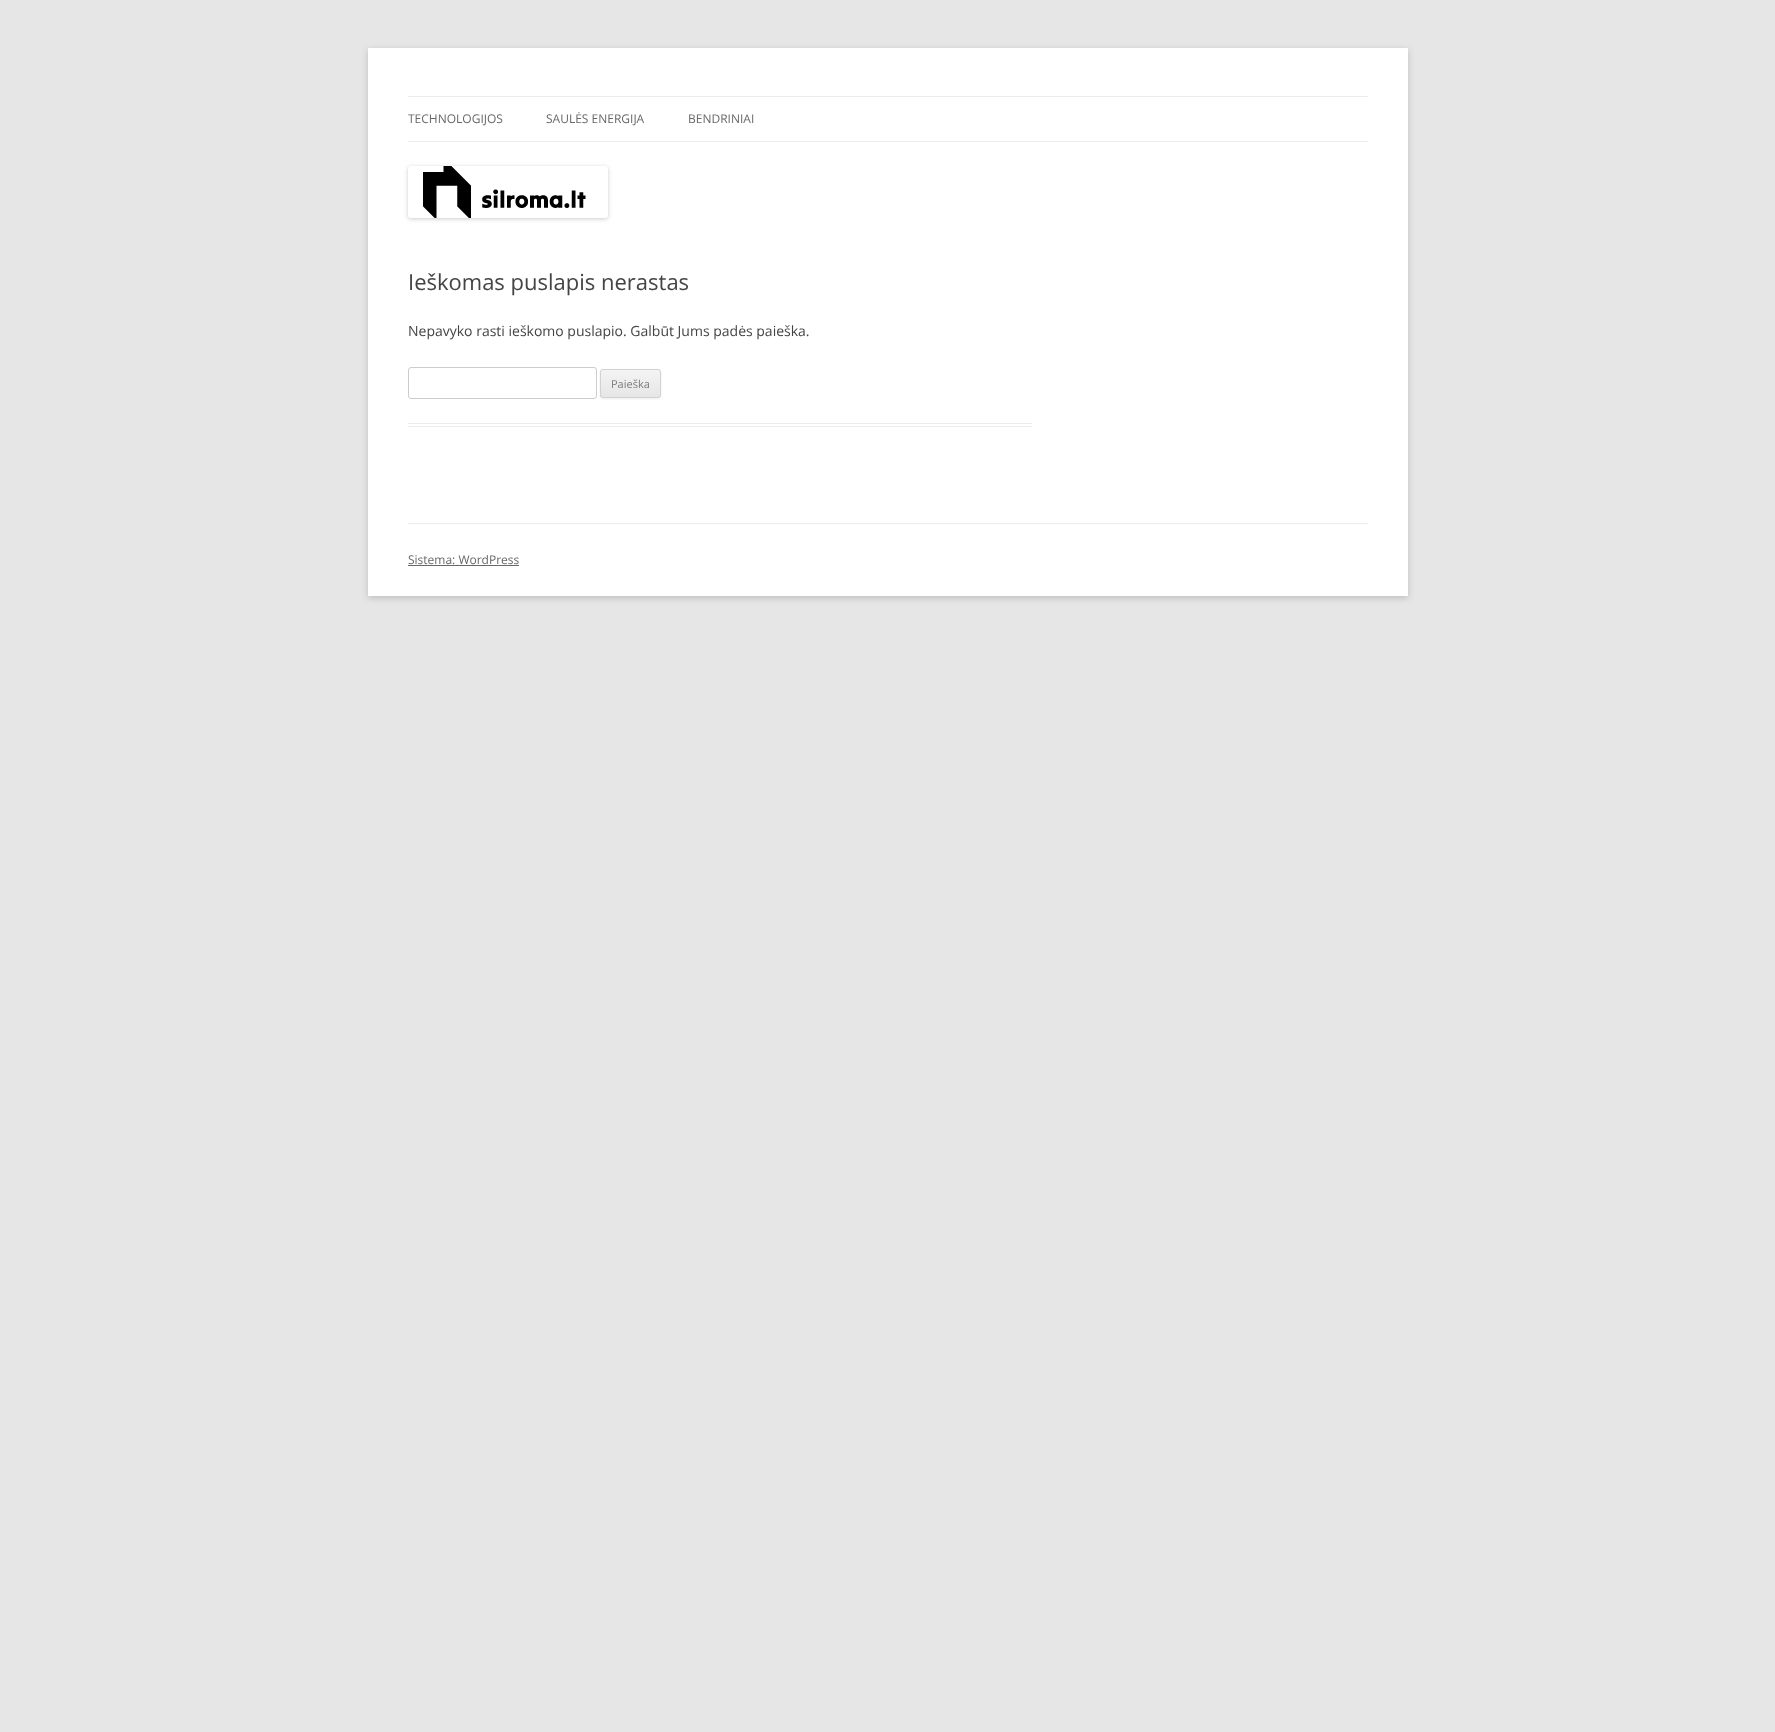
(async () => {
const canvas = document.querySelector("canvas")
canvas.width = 1775
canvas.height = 1732
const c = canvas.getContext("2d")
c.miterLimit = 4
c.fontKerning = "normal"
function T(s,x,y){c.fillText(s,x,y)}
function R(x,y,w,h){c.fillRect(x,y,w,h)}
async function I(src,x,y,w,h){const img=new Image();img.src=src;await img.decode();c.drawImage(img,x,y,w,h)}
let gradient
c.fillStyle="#e6e6e6"
R(0,0,1775,1732)
c.fillStyle="#6464644d"
c.filter="blur(3px)"
c.beginPath()
c.rect(368,50,1040,548)
c.fill()
c.filter="none"
c.fillStyle="#fff"
R(368,48,1040,548)
c.fillStyle="#ededed"
R(408,96,960,1)
R(408,141,960,1)
c.font="12px Open Sans"
c.fillStyle="#686868"
T("TECHNOLOGIJOS",408,123)
T("SAULĖS ENERGIJA",546,123)
T("BENDRINIAI",688,123)
c.fillStyle="#00000033"
c.filter="blur(2px)"
c.beginPath()
c.roundRect(408,167,200,52,3)
c.fill()
c.filter="none"
await I("1.png",408,166,200,52)
c.fillStyle="#ededed"
R(408,423,624,1)
R(408,426,624,1)
c.font="22px Open Sans"
c.fillStyle="#444"
T("Ieškomas puslapis nerastas",408,290)
c.font="14px Open Sans"
T("Nepavyko rasti ieškomo puslapio. Galbūt Jums padės paieška.",408,336)
c.beginPath()
c.roundRect(408.5,367.5,188,31,2.5)
c.strokeStyle="#ccc"
c.stroke()
c.fillStyle="#4040401a"
c.filter="blur(1px)"
c.beginPath()
c.roundRect(600,370,61,29,3)
c.fill()
c.filter="none"
c.save()
c.beginPath()
c.roundRect(600,369,61,29,3)
c.clip()
gradient = c.createLinearGradient(631,370,631,397)
gradient.addColorStop(0,"#f4f4f4")
gradient.addColorStop(1,"#e6e6e6")
c.fillStyle = gradient
R(600,370,61,27)
c.restore()
c.beginPath()
c.roundRect(600.5,369.5,60,28,2.5)
c.strokeStyle="#d2d2d2"
c.stroke()
c.font="11px Open Sans"
c.fillStyle="#7c7c7c"
T("Paieška",611,388)
c.fillStyle="#ededed"
R(408,523,960,1)
c.font="12px Open Sans"
c.fillStyle="#686868"
T("Sistema: WordPress",408,564)
R(408,565,111,1)
})()
